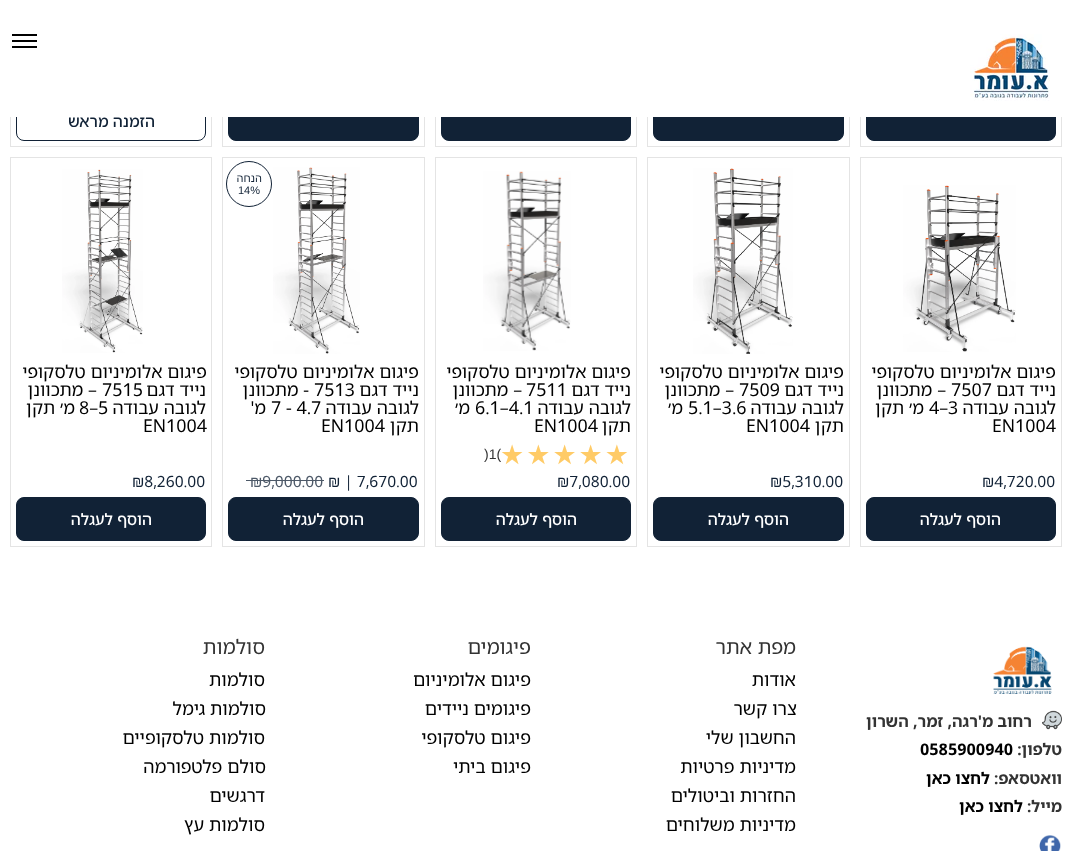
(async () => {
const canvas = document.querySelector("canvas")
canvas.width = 1072
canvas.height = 851
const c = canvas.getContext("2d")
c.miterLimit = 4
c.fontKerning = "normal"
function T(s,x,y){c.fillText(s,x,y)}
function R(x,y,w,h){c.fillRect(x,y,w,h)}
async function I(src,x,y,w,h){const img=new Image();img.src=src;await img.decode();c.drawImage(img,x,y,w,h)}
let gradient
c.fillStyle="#fff"
R(0,0,1072,851)
c.strokeStyle="#e4e4e4"
c.strokeRect(860.5,-.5,201,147)
c.fillStyle="#112236"
c.beginPath()
c.roundRect(866.5,97.5,189,43,7.5)
c.fill()
c.strokeStyle="#112236"
c.stroke()
c.strokeStyle="#e4e4e4"
c.strokeRect(647.5,-.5,202,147)
c.beginPath()
c.roundRect(653.5,97.5,190,43,7.5)
c.fill()
c.strokeStyle="#112236"
c.stroke()
c.strokeStyle="#e4e4e4"
c.strokeRect(435.5,-.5,201,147)
c.beginPath()
c.roundRect(441.5,97.5,189,43,7.5)
c.fill()
c.strokeStyle="#112236"
c.stroke()
c.strokeStyle="#e4e4e4"
c.strokeRect(222.5,-.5,202,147)
c.beginPath()
c.roundRect(228.5,97.5,190,43,7.5)
c.fill()
c.strokeStyle="#112236"
c.stroke()
c.strokeStyle="#e4e4e4"
c.strokeRect(10.5,-.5,201,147)
c.beginPath()
c.roundRect(16.5,101.5,189,39,7.5)
c.strokeStyle="#112236"
c.stroke()
c.fillStyle="#fff"
R(10,0,1052,117)
await I("1.png",970,34,80,67)
c.fillStyle="#000"
R(12,34,25,2)
R(12,46,25,2)
R(12,40,25,2)
c.direction="rtl"
c.font="500 15.75px Noto Sans Hebrew"
c.fillStyle="#112236"
T("הזמנה מראש",155,127)
c.strokeStyle="#e4e4e4"
c.strokeRect(860.5,157.5,201,389)
await I("2.png",903,185,113,167)
c.font="17.75px Noto Sans Hebrew"
c.fillStyle="#000"
T("פיגום אלומיניום טלסקופי",1056,378)
T("נייד דגם",1056,396)
c.direction="ltr"
T("7507",951,396)
c.direction="rtl"
T("– מתכוונן",946,396)
T("לגובה עבודה",1056,414)
c.direction="ltr"
T("4–3",929,414)
c.direction="rtl"
T("מ׳ תקן",924,414)
c.direction="ltr"
T("EN1004",992,432)
c.font="15.5px Noto Sans Hebrew"
c.fillStyle="#112236"
T("₪4,720.00",982,487)
c.beginPath()
c.roundRect(866.5,497.5,189,43,7.5)
c.fill()
c.strokeStyle="#112236"
c.stroke()
c.direction="rtl"
c.font="500 15.75px Noto Sans Hebrew"
c.fillStyle="#fff"
T("הוסף לעגלה",1001,525)
c.strokeStyle="#e4e4e4"
c.strokeRect(647.5,157.5,202,389)
await I("3.png",693,168,100,186)
c.font="17.75px Noto Sans Hebrew"
c.fillStyle="#000"
T("פיגום אלומיניום טלסקופי",844,378)
T("נייד דגם",844,396)
c.direction="ltr"
T("7509",739,396)
c.direction="rtl"
T("– מתכוונן",734,396)
T("לגובה עבודה",844,414)
c.direction="ltr"
T("5.1–3.6",688,414)
c.direction="rtl"
T("מ׳",683,414)
T("תקן",844,432)
c.direction="ltr"
T("EN1004",746,432)
c.font="15.5px Noto Sans Hebrew"
c.fillStyle="#112236"
T("₪5,310.00",770,487)
c.beginPath()
c.roundRect(653.5,497.5,190,43,7.5)
c.fill()
c.strokeStyle="#112236"
c.stroke()
c.direction="rtl"
c.font="500 15.75px Noto Sans Hebrew"
c.fillStyle="#fff"
T("הוסף לעגלה",789,525)
c.strokeStyle="#e4e4e4"
c.strokeRect(435.5,157.5,201,389)
await I("4.png",483,171,88,180)
c.font="17.75px Noto Sans Hebrew"
c.fillStyle="#000"
T("פיגום אלומיניום טלסקופי",631,378)
T("נייד דגם",631,396)
c.direction="ltr"
T("7511",526,396)
c.direction="rtl"
T("– מתכוונן",522,396)
T("לגובה עבודה",631,414)
c.direction="ltr"
T("6.1–4.1",475,414)
c.direction="rtl"
T("מ׳",470,414)
T("תקן",631,432)
c.direction="ltr"
T("EN1004",534,432)
c.letterSpacing="2px"
c.font="27px DejaVu Sans"
gradient = c.createLinearGradient(500,455,631,455)
gradient.addColorStop(1,"#ffcb67")
gradient.addColorStop(1,"#efefef")
c.fillStyle = gradient
T("★★★★★",500,464)
c.letterSpacing="0px"
c.font="14px Liberation Sans"
c.fillStyle="#333"
T(")1(",484,459)
c.font="15.5px Noto Sans Hebrew"
c.fillStyle="#112236"
T("₪7,080.00",557,487)
c.beginPath()
c.roundRect(441.5,497.5,189,43,7.5)
c.fill()
c.strokeStyle="#112236"
c.stroke()
c.direction="rtl"
c.font="500 15.75px Noto Sans Hebrew"
c.fillStyle="#fff"
T("הוסף לעגלה",577,525)
c.strokeStyle="#e4e4e4"
c.strokeRect(222.5,157.5,202,389)
await I("5.png",273,167,87,187)
c.beginPath()
c.arc(249,184,22.5,0,7)
c.strokeStyle="#112236"
c.stroke()
c.font="11px Liberation Sans"
c.fillStyle="#112236"
T("הנחה",262,182)
c.direction="ltr"
T("14%",238,194)
c.direction="rtl"
c.font="17.75px Noto Sans Hebrew"
c.fillStyle="#000"
T("פיגום אלומיניום טלסקופי",419,378)
T("נייד דגם",419,396)
c.direction="ltr"
T("7513",314,396)
c.direction="rtl"
T("- מתכוונן",309,396)
T("לגובה עבודה",419,414)
c.direction="ltr"
T("7 - 4.7",271,414)
c.direction="rtl"
T("מ'",266,414)
T("תקן",419,432)
c.direction="ltr"
T("EN1004",321,432)
c.font="15.5px Noto Sans Hebrew"
c.fillStyle="#112236"
T("₪ | 7,670.00",328,487)
c.fillStyle="#4d5968"
T("₪9,000.00",250,487)
R(246,480,78,1)
c.fillStyle="#112236"
c.beginPath()
c.roundRect(228.5,497.5,190,43,7.5)
c.fill()
c.stroke()
c.direction="rtl"
c.font="500 15.75px Noto Sans Hebrew"
c.fillStyle="#fff"
T("הוסף לעגלה",364,525)
c.strokeStyle="#e4e4e4"
c.strokeRect(10.5,157.5,201,389)
await I("6.png",62,169,81,184)
c.font="17.75px Noto Sans Hebrew"
c.fillStyle="#000"
T("פיגום אלומיניום טלסקופי",207,378)
T("נייד דגם",206,396)
c.direction="ltr"
T("7515",102,396)
c.direction="rtl"
T("– מתכוונן",97,396)
T("לגובה עבודה",206,414)
c.direction="ltr"
T("8–5",79,414)
c.direction="rtl"
T("מ׳ תקן",75,414)
c.direction="ltr"
T("EN1004",143,432)
c.font="15.5px Noto Sans Hebrew"
c.fillStyle="#112236"
T("₪8,260.00",132,487)
c.beginPath()
c.roundRect(16.5,497.5,189,43,7.5)
c.fill()
c.strokeStyle="#112236"
c.stroke()
c.direction="rtl"
c.font="500 15.75px Noto Sans Hebrew"
c.fillStyle="#fff"
T("הוסף לעגלה",152,525)
await I("7.png",993,646,59,48)
await I("8.png",1042,710,20,20)
c.font="bold 16px Noto Sans Hebrew"
c.fillStyle="#333"
T("רחוב מ'רגה, זמר, השרון",1032,727)
T("טלפון:",1062,755)
c.direction="ltr"
c.fillStyle="#000"
T("0585900940",920,755)
c.direction="rtl"
c.fillStyle="#333"
T("וואטסאפ:",1062,784)
c.fillStyle="#000"
T("לחצו כאן",990,784)
c.fillStyle="#333"
T("מייל:",1062,812)
c.fillStyle="#000"
T("לחצו כאן",1023,812)
await I("9.png",1039,835,22,16)
c.font="20px Noto Sans Hebrew"
c.fillStyle="#333"
T("מפת אתר",796,654)
c.font="18px Noto Sans Hebrew"
c.fillStyle="#000"
T("אודות",796,686)
T("צרו קשר",797,715)
T("החשבון שלי",796,744)
T("מדיניות פרטיות",796,773)
T("החזרות וביטולים",796,802)
T("מדיניות משלוחים",796,831)
c.font="20px Noto Sans Hebrew"
c.fillStyle="#333"
T("פיגומים",531,654)
c.font="18px Noto Sans Hebrew"
c.fillStyle="#000"
T("פיגום אלומיניום",531,686)
T("פיגומים ניידים",531,715)
T("פיגום טלסקופי",531,744)
T("פיגום ביתי",531,773)
c.font="20px Noto Sans Hebrew"
c.fillStyle="#333"
T("סולמות",265,654)
c.font="18px Noto Sans Hebrew"
c.fillStyle="#000"
T("סולמות",265,686)
T("סולמות גימל",266,715)
T("סולמות טלסקופיים",265,744)
T("סולם פלטפורמה",266,773)
T("דרגשים",265,802)
T("סולמות עץ",265,831)
})()
